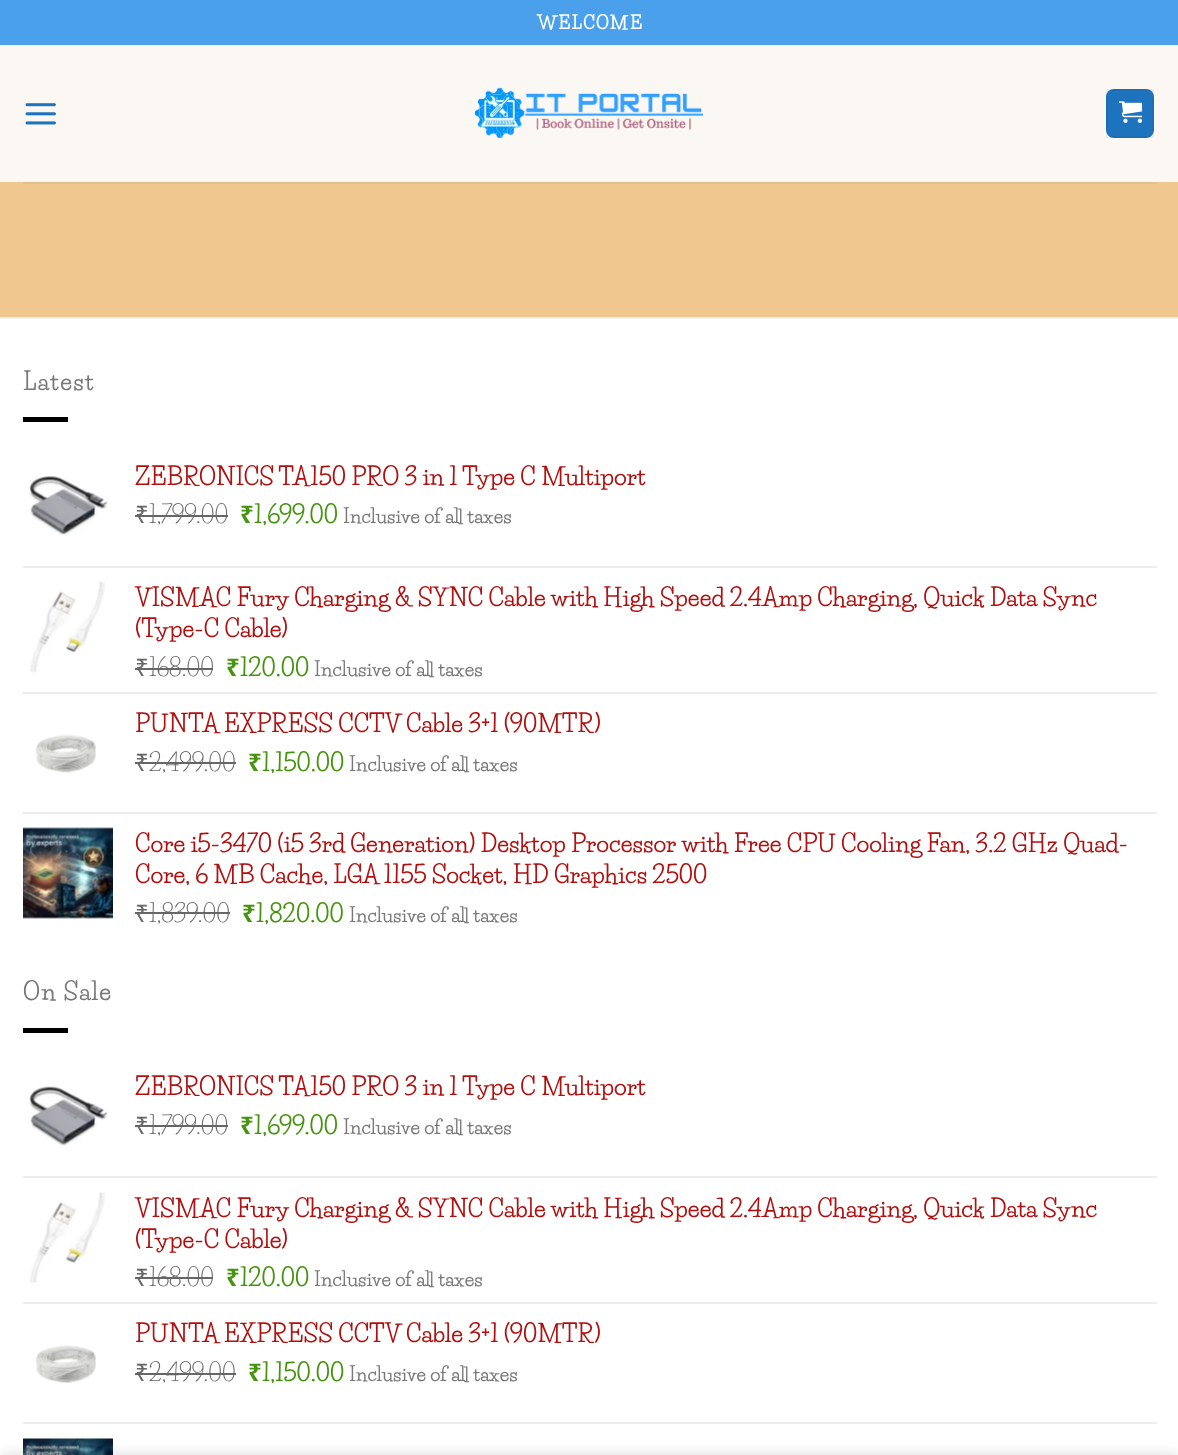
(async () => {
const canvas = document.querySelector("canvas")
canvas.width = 1178
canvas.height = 1455
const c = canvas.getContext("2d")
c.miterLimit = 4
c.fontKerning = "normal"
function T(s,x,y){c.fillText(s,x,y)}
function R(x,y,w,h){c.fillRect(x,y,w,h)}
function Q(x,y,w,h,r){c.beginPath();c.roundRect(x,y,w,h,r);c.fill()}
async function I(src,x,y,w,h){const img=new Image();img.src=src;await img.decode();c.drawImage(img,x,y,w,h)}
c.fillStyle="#efc78f"
R(0,0,1178,1455)
c.fillStyle="#4ba0eb"
R(0,0,1178,45)
c.letterSpacing="1px"
c.font="800 18px Life Savers"
c.fillStyle="#fff"
T("WELCOME",537,29)
c.fillStyle="#fbf8f3"
R(0,45,1178,137)
await I("1.png",25,103,31,22)
await I("2.png",474,87,230,52)
c.fillStyle="#1e73be"
Q(1106,89,48,49,8)
c.strokeStyle="#0000000d"
c.lineWidth=2
c.strokeRect(1107,90,46,47)
await I("3.png",1119,101,24,22)
c.fillStyle="#e3bf8d"
R(23,182,1134,2)
c.fillStyle="#fff"
R(0,319,1178,1136)
c.fillStyle="#f2f2f2"
R(0,317,1178,2)
c.letterSpacing="1.25px"
c.font="bold 24px Life Savers"
c.fillStyle="#777"
T("Latest",23,390)
c.fillStyle="#000"
R(23,417,45,5)
await I("4.png",29,475,79,60)
c.letterSpacing="0px"
c.fillStyle="#b11010"
T("ZEBRONICS TA150 PRO 3 in 1 Type C Multiport",135,485)
c.font="24px Noto Sans"
c.fillStyle="#666"
T("₹",135,523)
R(135,515,14,2)
c.font="24px Life Savers"
T("1,799.00",149,523)
R(149,515,79,2)
c.font="bold 24px Noto Sans"
c.fillStyle="#46940e"
T("₹",240,523)
c.font="bold 24px Life Savers"
T("1,699.00",254,523)
c.font="bold 19.25px Life Savers"
c.fillStyle="#777"
T("Inclusive of all taxes",343,523)
c.fillStyle="#ececec"
R(23,566,1134,2)
await I("5.png",30,581,75,92)
c.font="bold 24px Life Savers"
c.fillStyle="#b11010"
T("VISMAC Fury Charging & SYNC Cable with High Speed 2.4Amp Charging, Quick Data Sync",135,606)
T("(Type-C Cable)",135,637)
c.font="24px Noto Sans"
c.fillStyle="#666"
T("₹",135,676)
R(135,668,14,2)
R(149,668,64,2)
c.font="24px Life Savers"
T("168.00",149,676)
c.font="bold 24px Noto Sans"
c.fillStyle="#46940e"
T("₹",226,676)
c.font="bold 24px Life Savers"
T("120.00",240,676)
c.font="bold 19.25px Life Savers"
c.fillStyle="#777"
T("Inclusive of all taxes",314,676)
c.fillStyle="#ececec"
R(23,692,1134,2)
c.font="bold 24px Life Savers"
c.fillStyle="#b11010"
T("PUNTA EXPRESS CCTV Cable 3+1 (90MTR)",135,732)
await I("6.png",35,734,61,39)
c.font="24px Noto Sans"
c.fillStyle="#666"
T("₹",135,771)
R(135,762,14,2)
c.font="24px Life Savers"
T("2,499.00",149,771)
R(149,762,87,2)
c.font="bold 24px Noto Sans"
c.fillStyle="#46940e"
T("₹",248,771)
c.font="bold 24px Life Savers"
T("1,150.00",262,771)
c.font="bold 19.25px Life Savers"
c.fillStyle="#777"
T("Inclusive of all taxes",349,771)
c.fillStyle="#ececec"
R(23,812,1134,2)
await I("7.png",23,827,90,92)
c.font="bold 24px Life Savers"
c.fillStyle="#b11010"
T("Core i5-3470 (i5 3rd Generation) Desktop Processor with Free CPU Cooling Fan, 3.2 GHz Quad-",135,852)
T("Core, 6 MB Cache, LGA 1155 Socket, HD Graphics 2500",135,883)
c.font="24px Noto Sans"
c.fillStyle="#666"
T("₹",135,922)
R(135,912,14,2)
c.font="24px Life Savers"
T("1,839.00",149,922)
R(149,912,81,2)
c.font="bold 24px Noto Sans"
c.fillStyle="#46940e"
T("₹",242,922)
c.font="bold 24px Life Savers"
T("1,820.00",256,922)
c.font="bold 19.25px Life Savers"
c.fillStyle="#777"
T("Inclusive of all taxes",349,922)
c.letterSpacing="1.25px"
c.font="bold 24px Life Savers"
T("On Sale",23,1000)
c.fillStyle="#000"
R(23,1028,45,5)
await I("8.png",29,1086,79,60)
c.letterSpacing="0px"
c.fillStyle="#b11010"
T("ZEBRONICS TA150 PRO 3 in 1 Type C Multiport",135,1095)
c.font="24px Noto Sans"
c.fillStyle="#666"
T("₹",135,1134)
R(135,1125,14,2)
c.font="24px Life Savers"
T("1,799.00",149,1134)
R(149,1125,79,2)
c.font="bold 24px Noto Sans"
c.fillStyle="#46940e"
T("₹",240,1134)
c.font="bold 24px Life Savers"
T("1,699.00",254,1134)
c.font="bold 19.25px Life Savers"
c.fillStyle="#777"
T("Inclusive of all taxes",343,1134)
c.fillStyle="#ececec"
R(23,1176,1134,2)
await I("9.png",30,1192,75,91)
c.font="bold 24px Life Savers"
c.fillStyle="#b11010"
T("VISMAC Fury Charging & SYNC Cable with High Speed 2.4Amp Charging, Quick Data Sync",135,1217)
T("(Type-C Cable)",135,1248)
c.font="24px Noto Sans"
c.fillStyle="#666"
T("₹",135,1286)
R(135,1277,14,2)
R(149,1277,64,2)
c.font="24px Life Savers"
T("168.00",149,1286)
c.font="bold 24px Noto Sans"
c.fillStyle="#46940e"
T("₹",226,1286)
c.font="bold 24px Life Savers"
T("120.00",240,1286)
c.font="bold 19.25px Life Savers"
c.fillStyle="#777"
T("Inclusive of all taxes",314,1286)
c.fillStyle="#ececec"
R(23,1302,1134,2)
c.font="bold 24px Life Savers"
c.fillStyle="#b11010"
T("PUNTA EXPRESS CCTV Cable 3+1 (90MTR)",135,1342)
await I("10.png",35,1345,61,38)
c.font="24px Noto Sans"
c.fillStyle="#666"
T("₹",135,1381)
R(135,1373,14,2)
c.font="24px Life Savers"
T("2,499.00",149,1381)
R(149,1373,87,2)
c.font="bold 24px Noto Sans"
c.fillStyle="#46940e"
T("₹",248,1381)
c.font="bold 24px Life Savers"
T("1,150.00",262,1381)
c.font="bold 19.25px Life Savers"
c.fillStyle="#777"
T("Inclusive of all taxes",349,1381)
c.fillStyle="#ececec"
R(23,1422,1134,2)
await I("11.png",23,1438,90,17)
c.fillStyle="#00000024"
c.filter="blur(7px)"
c.beginPath()
c.rect(0,1455,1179,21)
c.fill()
c.filter="none"
})()
